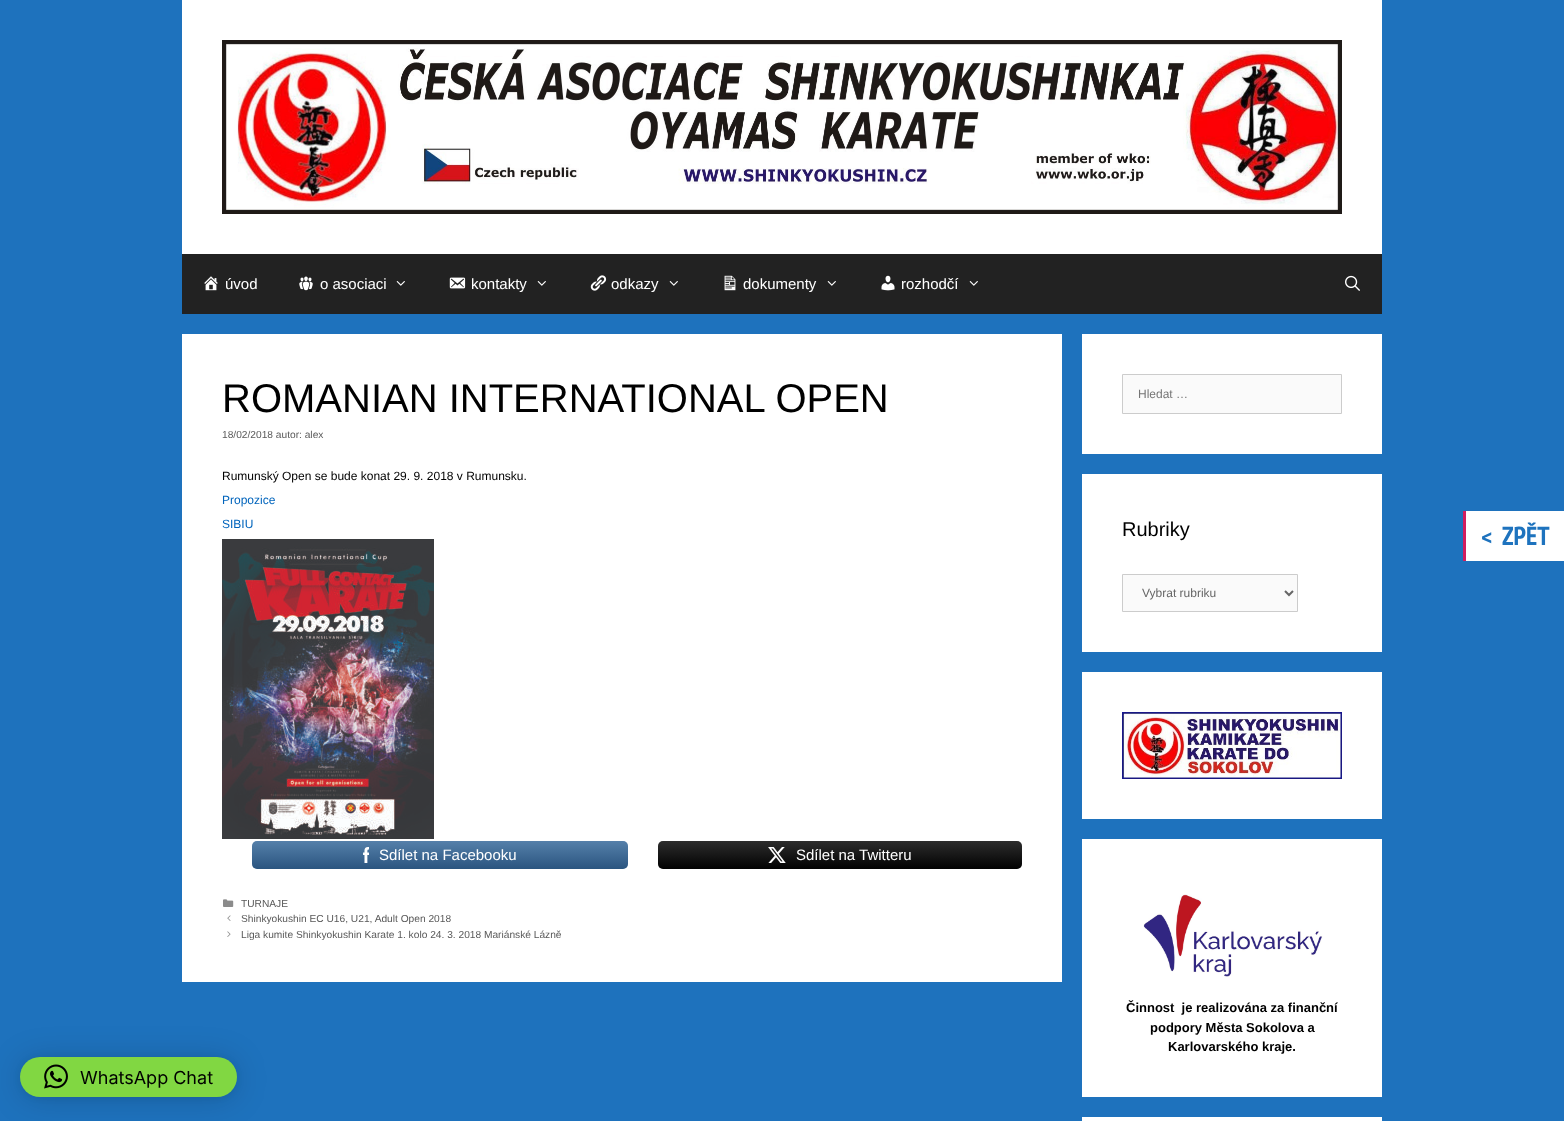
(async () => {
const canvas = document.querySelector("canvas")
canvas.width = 1564
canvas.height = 1121
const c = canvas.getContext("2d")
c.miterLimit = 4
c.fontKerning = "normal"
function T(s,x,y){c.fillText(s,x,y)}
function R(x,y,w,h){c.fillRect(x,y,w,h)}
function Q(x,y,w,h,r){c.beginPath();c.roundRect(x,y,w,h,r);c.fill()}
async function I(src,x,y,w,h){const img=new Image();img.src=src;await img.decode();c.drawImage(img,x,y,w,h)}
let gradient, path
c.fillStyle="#1e72bd"
R(0,0,1564,1121)
c.fillStyle="#fff"
R(182,0,1200,254)
await I("1.png",222,40,1120,174)
c.fillStyle="#222"
R(182,254,1200,60)
await I("2.png",204,276,14,15)
c.font="15px Liberation Sans"
c.fillStyle="#fff"
T("úvod",225,289)
await I("3.png",299,276,14,15)
T("o asociaci",320,289)
await I("4.png",396,281,9,5)
await I("5.png",449,277,17,12)
T("kontakty",471,289)
await I("4.png",537,281,9,5)
await I("6.png",590,275,17,16)
T("odkazy",611,289)
await I("4.png",669,281,9,5)
await I("7.png",724,275,12,16)
T("dokumenty",743,289)
await I("4.png",827,281,9,5)
await I("8.png",881,275,14,16)
T("rozhodčí",901,289)
await I("4.png",969,281,9,5)
await I("9.png",1345,275,15,16)
R(182,334,880,648)
c.font="40px Liberation Sans"
c.fillStyle="#000"
T("ROMANIAN INTERNATIONAL OPEN",222,412)
c.font="10.2px Liberation Sans"
c.fillStyle="#595959"
T("18/02/2018 autor: alex",222,438)
c.font="12px Liberation Sans"
c.fillStyle="#000"
T("Rumunský Open se bude konat 29. 9. 2018 v Rumunsku.",222,480)
c.fillStyle="#0064bc"
T("Propozice",222,504)
T("SIBIU",222,528)
await I("10.png",222,539,212,300)
c.fillStyle="#369"
Q(252,841,376,28,5)
gradient = c.createLinearGradient(440,869,440,841)
gradient.addColorStop(0,"#0000002b")
gradient.addColorStop(1,"#ffffff2b")
c.fillStyle = gradient
Q(252,841,376,28,5)
await I("11.png",363,847,6,16)
c.font="15px Liberation Sans"
c.fillStyle="#fff"
T("Sdílet na Facebooku",379,860)
c.fillStyle="#020202"
Q(658,841,364,28,5)
gradient = c.createLinearGradient(840,869,840,841)
gradient.addColorStop(0,"#0000002b")
gradient.addColorStop(1,"#ffffff2b")
c.fillStyle = gradient
Q(658,841,364,28,5)
await I("12.png",768,847,18,16)
c.fillStyle="#fff"
T("Sdílet na Twitteru",796,860)
await I("13.png",223,899,11,8)
c.font="10.2px Liberation Sans"
c.fillStyle="#595959"
T("TURNAJE",241,907)
await I("14.png",227,915,4,6)
T("Shinkyokushin EC U16, U21, Adult Open 2018",241,922)
await I("15.png",227,931,4,6)
T("Liga kumite Shinkyokushin Karate 1. kolo 24. 3. 2018 Mariánské Lázně",241,938)
c.fillStyle="#fff"
R(1082,334,300,120)
c.fillStyle="#fafafa"
c.beginPath()
c.rect(1122.5,374.5,219,39)
c.fill()
c.strokeStyle="#ccc"
c.stroke()
c.font="12px Liberation Sans"
c.fillStyle="#757575"
T("Hledat …",1138,398)
c.fillStyle="#fff"
R(1082,474,300,178)
c.font="20px Liberation Sans"
c.fillStyle="#000"
T("Rubriky",1122,536)
c.fillStyle="#fafafa"
c.beginPath()
c.rect(1122.5,574.5,175,37)
c.fill()
c.stroke()
path = new Path2D("M1285 591l4 4l4-4")
c.strokeStyle="#666"
c.lineWidth=2
c.stroke(path)
c.font="12px Liberation Sans"
c.fillStyle="#666"
T("Vybrat rubriku",1142,597)
c.fillStyle="#fff"
R(1082,672,300,147)
await I("16.png",1122,712,220,67)
R(1082,839,300,258)
await I("17.png",1143,894,180,83)
c.font="bold 13px Liberation Sans"
c.fillStyle="#000"
T("Činnost  je realizována za finanční",1126,1012)
T("podpory Města Sokolova a",1150,1032)
T("Karlovarského kraje.",1168,1051)
c.fillStyle="#fff"
R(1082,1117,300,4)
R(1466,511,98,50)
c.fillStyle="#d11d5f"
R(1463,511,3,50)
c.font="bold 26px Cabin"
c.fillStyle="#1e73be"
T("<",1481,545)
c.font="bold 26px PT Sans Narrow"
T("ZPĚT",1502,545)
c.fillStyle="#00000029"
c.filter="blur(16px)"
c.beginPath()
c.roundRect(20,1059,217,40,20)
c.fill()
c.filter="none"
c.fillStyle="#0000000f"
c.filter="blur(3px)"
c.beginPath()
c.roundRect(20,1058,217,40,20)
c.fill()
c.filter="none"
c.fillStyle="#81d742"
Q(20,1057,217,40,20)
await I("18.png",44,1064,24,25)
c.font="18px Inter"
c.fillStyle="#000"
T("WhatsApp Chat",80,1084)
})()
